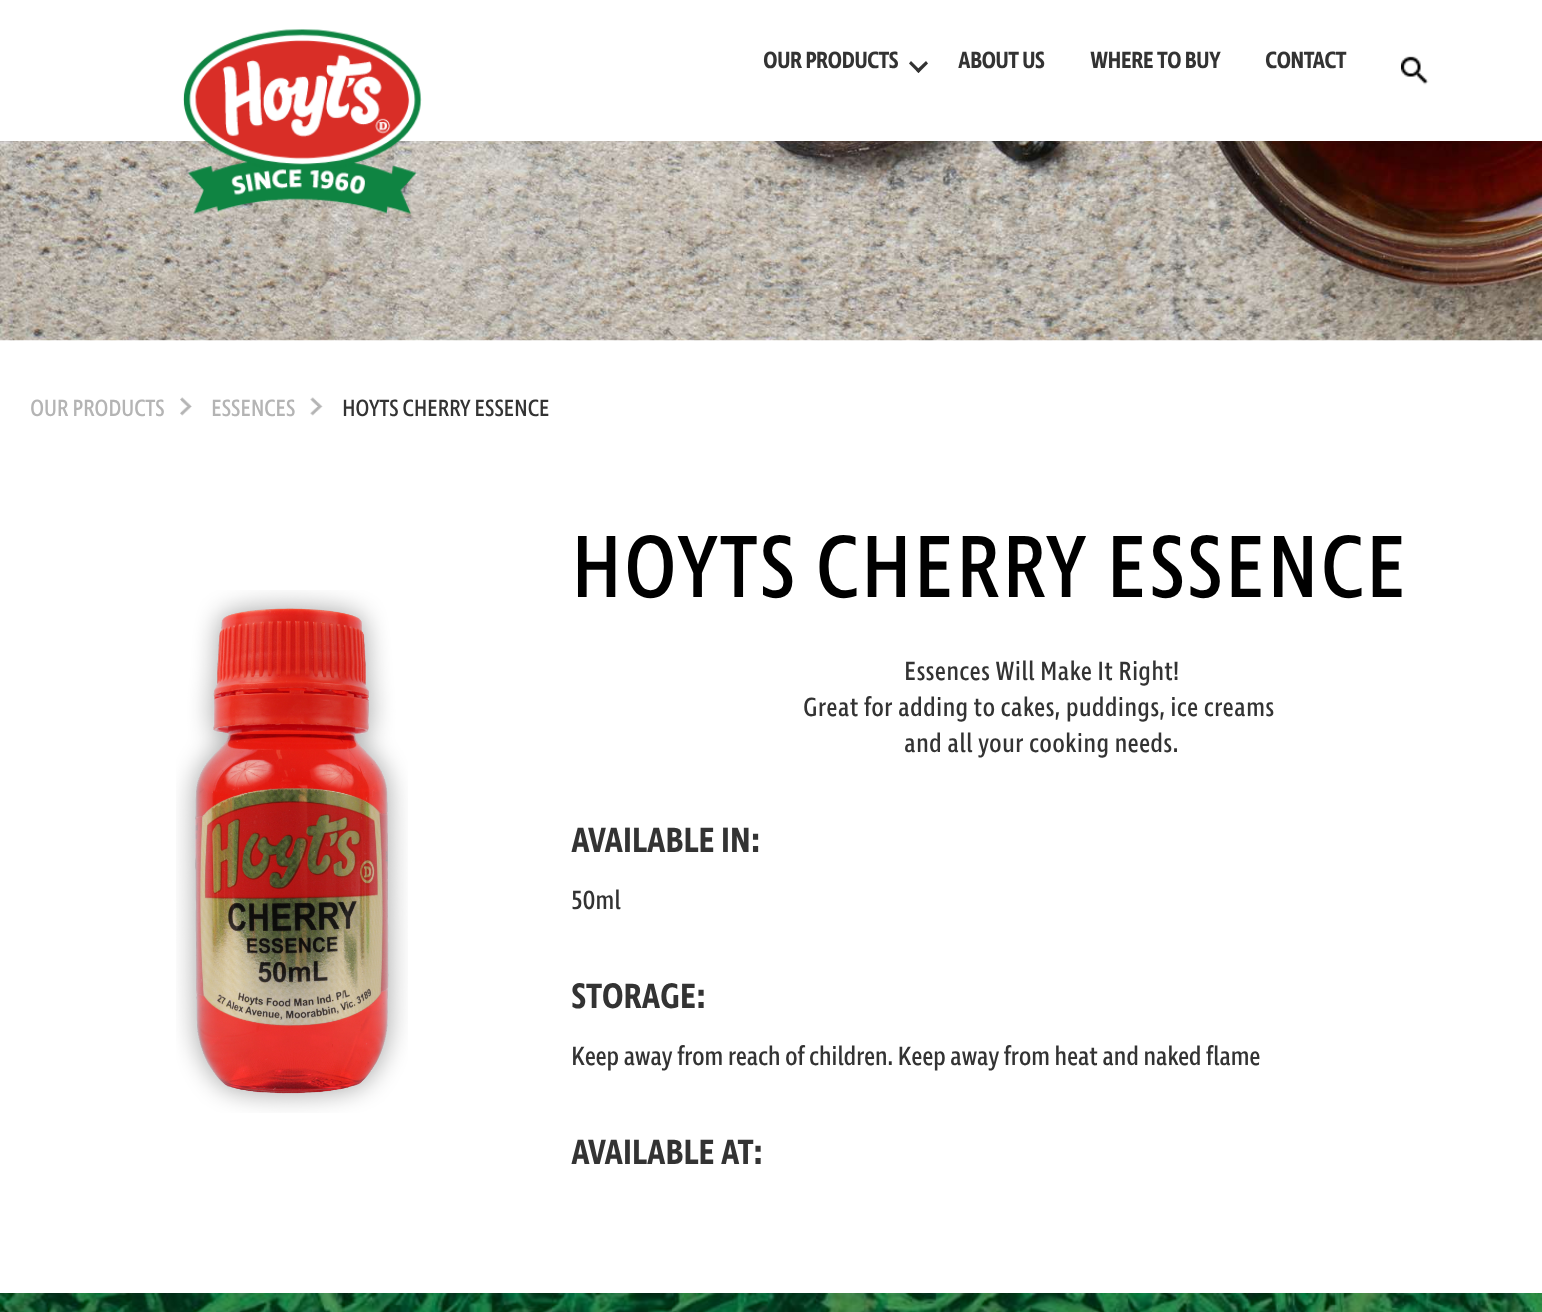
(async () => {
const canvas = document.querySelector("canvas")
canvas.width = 1542
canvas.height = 1312
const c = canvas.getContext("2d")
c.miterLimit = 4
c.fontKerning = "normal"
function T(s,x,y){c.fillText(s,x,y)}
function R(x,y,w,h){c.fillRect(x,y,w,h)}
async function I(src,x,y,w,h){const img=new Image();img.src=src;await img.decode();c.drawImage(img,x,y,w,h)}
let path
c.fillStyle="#fff"
R(0,0,1542,1312)
await I("3.png",0,141,1542,200)
await I("1.png",183,29,239,186)
c.letterSpacing="-0.75px"
c.font="600 24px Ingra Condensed"
c.fillStyle="#333"
T("OUR PRODUCTS",763,68)
path = new Path2D("M909 63.5l2-2.5l9.5 9.5l-2 2.5z")
c.fill(path)
path = new Path2D("M916 70.5l10-9.5l2 2.5l-9.5 9.5z")
c.fill(path)
T("ABOUT US",958,68)
T("WHERE TO BUY",1090,68)
T("CONTACT",1265,68)
await I("2.png",1401,56,28,29)
c.letterSpacing="-0.4px"
c.font="24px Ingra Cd"
c.fillStyle="#b4b4b4"
T("OUR PRODUCTS",30,416)
await I("4.png",180,397,12,19)
T("ESSENCES",211,416)
await I("5.png",310,397,13,19)
c.fillStyle="#333"
T("HOYTS CHERRY ESSENCE",342,416)
await I("6.png",176,590,232,523)
c.letterSpacing="1.5px"
c.font="90px Ingra Cd"
c.fillStyle="#000"
T("HOYTS CHERRY ESSENCE",571,597)
c.letterSpacing="0.15px"
c.font="27px Ingra Cd"
c.fillStyle="#333"
T("Essences Will Make It Right!",904,680)
T("Great for adding to cakes, puddings, ice creams",803,716)
T("and all your cooking needs.",904,752)
c.letterSpacing="-0.4px"
c.font="600 36px Ingra Condensed"
T("AVAILABLE IN:",571,852)
c.font="27px Ingra Cd"
T("50ml",571,909)
c.font="600 36px Ingra Condensed"
T("STORAGE:",571,1008)
c.font="27px Ingra Cd"
T("Keep away from reach of children. Keep away from heat and naked flame",571,1065)
c.font="600 36px Ingra Condensed"
T("AVAILABLE AT:",571,1164)
await I("7.png",0,1293,1542,19)
})()
